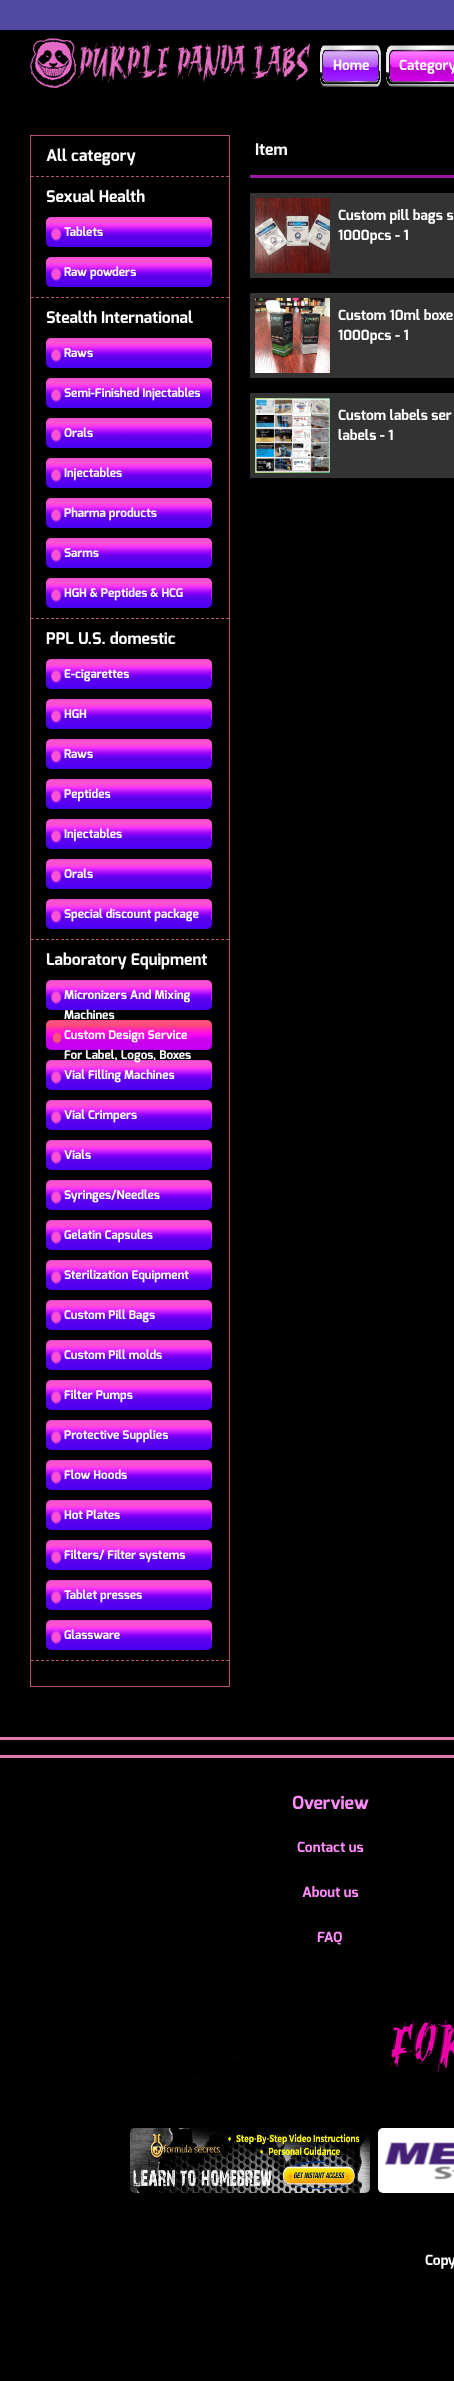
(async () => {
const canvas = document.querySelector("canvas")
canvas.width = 454
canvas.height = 2381
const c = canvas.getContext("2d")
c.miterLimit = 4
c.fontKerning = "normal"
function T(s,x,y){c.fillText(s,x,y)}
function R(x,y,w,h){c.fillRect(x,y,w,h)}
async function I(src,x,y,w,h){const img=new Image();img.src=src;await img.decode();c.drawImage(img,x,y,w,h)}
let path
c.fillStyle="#000"
R(0,0,454,2381)
c.fillStyle="#524aa2"
R(0,0,454,30)
await I("1.png",30,38,280,50)
await I("2.png",320,45,61,42)
c.font="bold 14px Exo"
c.fillStyle="#fff"
T("Home",333,70)
await I("3.png",386,45,68,42)
T("Category",399,70)
c.strokeStyle="#b35273"
c.strokeRect(30.5,135.5,199,1551)
path = new Path2D("M31 176.5h198")
c.setLineDash([3,2])
c.stroke(path)
c.font="bold 16px Exo"
T("All category",46,161)
path = new Path2D("M31 297.5h198")
c.stroke(path)
T("Sexual Health",46,202)
await I("4.png",46,217,166,30)
c.font="bold 12px Exo"
T("Tablets",64,236)
await I("5.png",46,257,166,30)
T("Raw powders",64,276)
path = new Path2D("M31 618.5h198")
c.stroke(path)
c.font="bold 16px Exo"
T("Stealth International",46,323)
await I("6.png",46,338,166,30)
c.font="bold 12px Exo"
T("Raws",64,357)
await I("4.png",46,378,166,30)
T("Semi-Finished Injectables",64,397)
await I("7.png",46,418,166,30)
T("Orals",64,437)
await I("8.png",46,458,166,30)
T("Injectables",64,477)
await I("9.png",46,498,166,30)
T("Pharma products",64,517)
await I("10.png",46,538,166,30)
T("Sarms",64,557)
await I("6.png",46,578,166,30)
T("HGH & Peptides & HCG",64,597)
path = new Path2D("M31 939.5h198")
c.stroke(path)
c.font="bold 16px Exo"
T("PPL U.S. domestic",46,644)
await I("11.png",46,659,166,30)
c.font="bold 12px Exo"
T("E-cigarettes",64,678)
await I("12.png",46,699,166,30)
T("HGH",64,718)
await I("13.png",46,739,166,30)
T("Raws",64,758)
await I("6.png",46,779,166,30)
T("Peptides",64,798)
await I("5.png",46,819,166,30)
T("Injectables",64,838)
await I("14.png",46,859,166,30)
T("Orals",64,878)
await I("11.png",46,899,166,30)
T("Special discount package",64,918)
path = new Path2D("M31 1660.5h198")
c.stroke(path)
c.font="bold 16px Exo"
T("Laboratory Equipment",46,965)
await I("8.png",46,980,166,30)
c.font="bold 12px Exo"
T("Micronizers And Mixing",64,999)
T("Machines",64,1019)
await I("15.png",46,1020,166,30)
T("Custom Design Service",64,1039)
await I("10.png",46,1060,166,30)
T("For Label, Logos, Boxes",64,1059)
T("Vial Filling Machines",64,1079)
await I("6.png",46,1100,166,30)
T("Vial Crimpers",64,1119)
await I("4.png",46,1140,166,30)
T("Vials",64,1159)
await I("7.png",46,1180,166,30)
T("Syringes/Needles",64,1199)
await I("8.png",46,1220,166,30)
T("Gelatin Capsules",64,1239)
await I("9.png",46,1260,166,30)
T("Sterilization Equipment",64,1279)
await I("10.png",46,1300,166,30)
T("Custom Pill Bags",64,1319)
await I("6.png",46,1340,166,30)
T("Custom Pill molds",64,1359)
await I("4.png",46,1380,166,30)
T("Filter Pumps",64,1399)
await I("7.png",46,1420,166,30)
T("Protective Supplies",64,1439)
await I("8.png",46,1460,166,30)
T("Flow Hoods",64,1479)
await I("16.png",46,1500,166,30)
T("Hot Plates",64,1519)
await I("5.png",46,1540,166,30)
T("Filters/ Filter systems",64,1559)
await I("6.png",46,1580,166,30)
T("Tablet presses",64,1599)
await I("4.png",46,1620,166,30)
T("Glassware",64,1639)
c.fillStyle="#9a16a8"
R(250,175,204,3)
c.font="bold 16px Exo"
c.fillStyle="#fff"
T("Item",255,155)
c.fillStyle="#333"
R(250,193,204,85)
await I("17.png",255,198,75,75)
c.font="bold 14px Exo"
c.fillStyle="#fff"
T("Custom pill bags s",338,220)
T("1000pcs - 1",338,240)
c.fillStyle="#333"
R(250,293,204,85)
await I("18.png",255,298,75,75)
c.fillStyle="#fff"
T("Custom 10ml boxe",338,320)
T("1000pcs - 1",338,340)
c.fillStyle="#333"
R(250,393,204,85)
await I("19.png",255,398,75,75)
c.fillStyle="#fff"
T("Custom labels ser",338,420)
T("labels - 1",338,440)
c.fillStyle="#dd7bac"
R(0,1737,454,3)
R(0,1755,454,3)
c.font="bold 18px Exo"
c.fillStyle="#ff8cfb"
T("Overview",292,1809)
c.font="bold 14px Exo"
T("Contact us",297,1852)
T("About us",302,1897)
T("FAQ",317,1942)
await I("20.png",155,2019,299,68)
await I("21.png",130,2128,240,65)
await I("22.png",378,2128,76,65)
c.fillStyle="#fff"
T("Copy",425,2265)
})()
